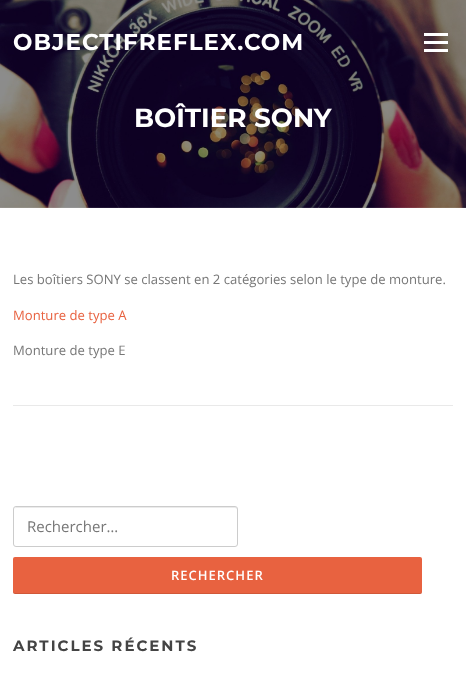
(async () => {
const canvas = document.querySelector("canvas")
canvas.width = 466
canvas.height = 674
const c = canvas.getContext("2d")
c.miterLimit = 4
c.fontKerning = "normal"
function T(s,x,y){c.fillText(s,x,y)}
function R(x,y,w,h){c.fillRect(x,y,w,h)}
function Q(x,y,w,h,r){c.beginPath();c.roundRect(x,y,w,h,r);c.fill()}
async function I(src,x,y,w,h){const img=new Image();img.src=src;await img.decode();c.drawImage(img,x,y,w,h)}
let path
c.fillStyle="#fff"
R(0,0,466,674)
await I("1.png",0,0,466,208)
c.letterSpacing="1px"
c.font="bold 23px Montserrat"
T("OBJECTIFREFLEX.COM",13,50)
R(424,41,24,3)
R(424,33,24,3)
R(424,49,24,3)
c.letterSpacing="0px"
c.font="bold 26.25px Montserrat"
T("BOÎTIER SONY",134,127)
c.font="13.1px Open Sans"
c.fillStyle="#777"
T("Les boîtiers SONY se classent en 2 catégories selon le type de monture.",13,284)
c.fillStyle="#e86240"
T("Monture de type A",13,320)
c.fillStyle="#777"
T("Monture de type E",13,355)
c.fillStyle="#e9e9e9"
R(13,405,440,1)
c.fillStyle="#ebebeb"
path = new Path2D("M16 508h219c1 0 2 1 2 2c0-1 0-3-2-3h-219l-1 1l-1 2c0-1 1-2 2-2z")
c.fill(path)
c.beginPath()
c.roundRect(13.5,506.5,224,40,2.5)
c.strokeStyle="#ccc"
c.stroke()
c.font="15px Open Sans"
c.fillStyle="#777"
T("Rechercher…",27,532)
c.fillStyle="#e86240"
Q(13,557,409,37,2)
c.fillStyle="#0000001a"
path = new Path2D("M13 591v2l2 1h406c1-1 1-2 1-3c0 1-1 2-2 2h-405c-1 0-2-1-2-2z")
c.fill(path)
c.letterSpacing="1px"
c.font="600 13px Open Sans"
c.fillStyle="#fff"
T("RECHERCHER",171,580)
c.letterSpacing="2px"
c.font="bold 15px Montserrat"
c.fillStyle="#444"
T("ARTICLES RÉCENTS",13,651)
})()
